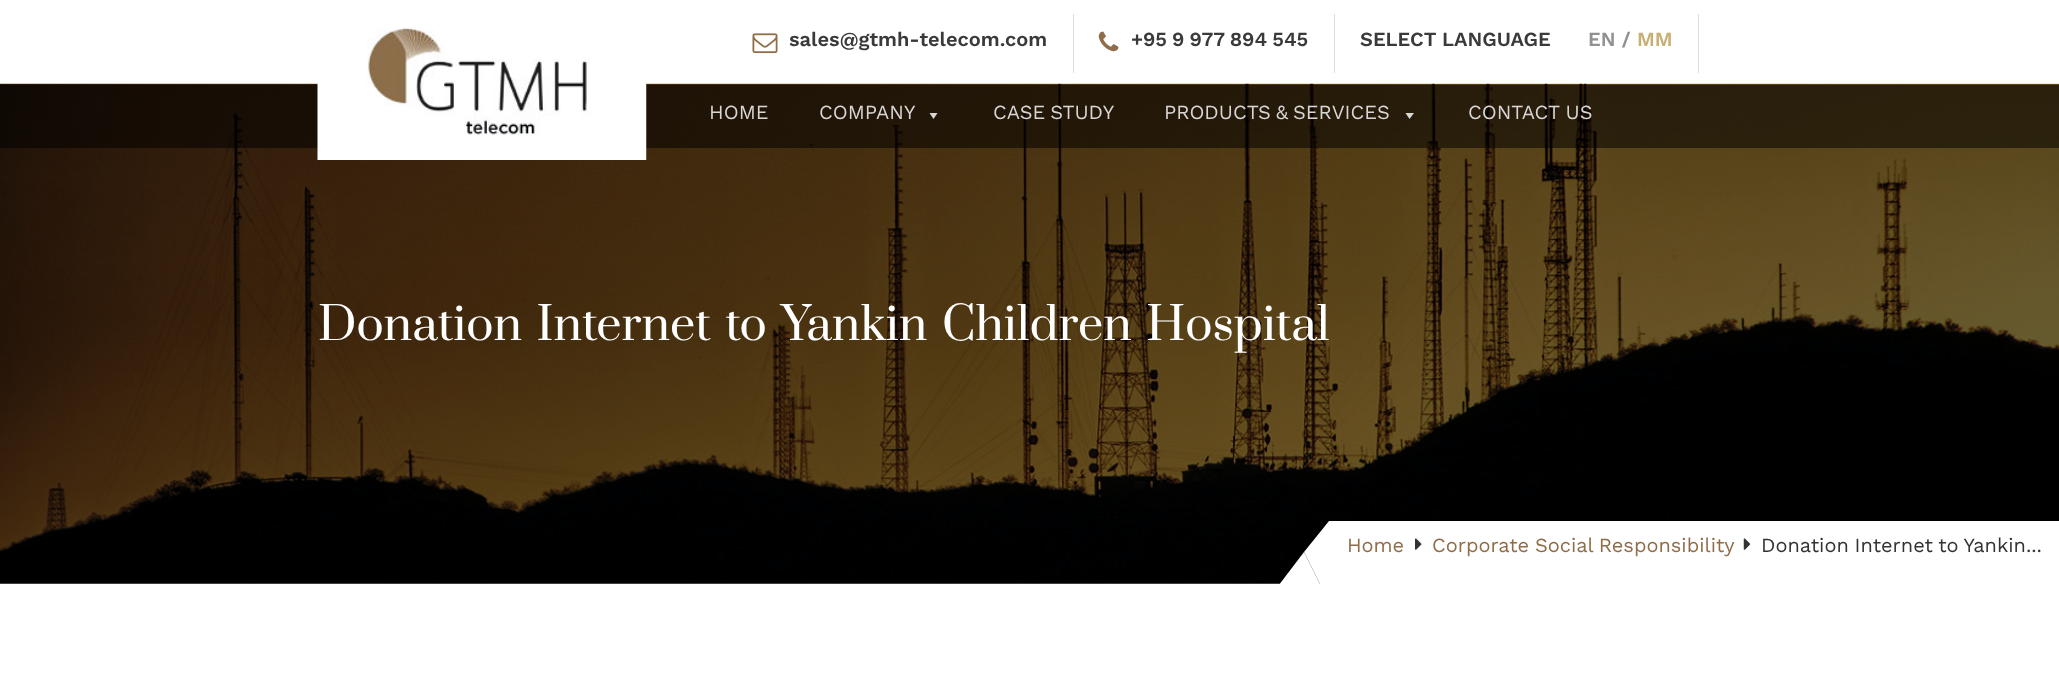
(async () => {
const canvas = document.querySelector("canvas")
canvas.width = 2059
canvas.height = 689
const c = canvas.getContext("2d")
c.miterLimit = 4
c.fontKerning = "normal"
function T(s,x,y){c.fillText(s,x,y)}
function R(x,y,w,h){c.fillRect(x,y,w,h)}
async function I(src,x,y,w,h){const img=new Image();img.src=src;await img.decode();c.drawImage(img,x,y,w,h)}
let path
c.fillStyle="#fff"
R(0,0,2059,689)
await I("4.png",0,83,2059,501)
c.fillStyle="#00000085"
R(0,85,2059,63)
await I("1.png",317,27,330,133)
c.fillStyle="#ddd"
R(1073,14,1,59)
await I("2.png",752,33,26,21)
c.font="600 20px Work Sans"
c.fillStyle="#3a3a3a"
T("sales@gtmh-telecom.com",789,46)
c.fillStyle="#ddd"
R(1334,14,1,59)
await I("3.png",1098,31,21,21)
c.wordSpacing="-1px"
c.fillStyle="#3a3a3a"
T("+95 9 977 894 545",1131,46)
c.fillStyle="#ddd"
R(1698,14,1,59)
c.wordSpacing="0px"
c.fillStyle="#3a3a3a"
T("SELECT LANGUAGE",1360,46)
c.fillStyle="#919191"
T("EN /",1588,46)
c.fillStyle="#c8af74"
T("MM",1637,46)
c.font="20px Work Sans"
c.fillStyle="#d9d7d5"
T("HOME",709,119)
T("COMPANY",819,119)
path = new Path2D("M937.5 113l-4 6l-4-6z")
c.fill(path)
c.wordSpacing="-2px"
T("CASE STUDY",993,119)
T("PRODUCTS & SERVICES",1164,119)
c.fillStyle="#dad9d5"
path = new Path2D("M1414 113l-4.5 6l-4-6z")
c.fill(path)
c.wordSpacing="-1px"
c.fillStyle="#d9d7d5"
T("CONTACT US",1468,119)
c.wordSpacing="3.75px"
c.font="45px Prata"
c.fillStyle="#fff"
T("Donation Internet to Yankin Children Hospital",318,340)
R(1329,521,730,63)
path = new Path2D("M1329 521v81l-25-50z")
c.fill(path)
path = new Path2D("M1329 602h-63l38-50z")
c.fill(path)
c.wordSpacing="0px"
c.font="20px Work Sans"
c.fillStyle="#8f6d48"
T("Home",1347,552)
await I("5.png",1415,538,7,12)
c.wordSpacing="-1px"
T("Corporate Social Responsibility",1432,552)
await I("6.png",1743,538,8,12)
c.fillStyle="#333"
T("Donation Internet to Yankin...",1761,552)
})()
